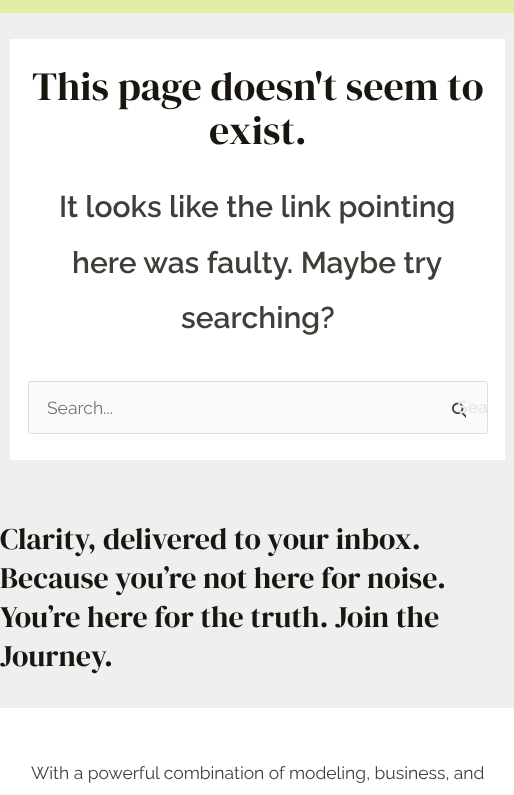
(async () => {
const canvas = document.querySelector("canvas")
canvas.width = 514
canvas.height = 795
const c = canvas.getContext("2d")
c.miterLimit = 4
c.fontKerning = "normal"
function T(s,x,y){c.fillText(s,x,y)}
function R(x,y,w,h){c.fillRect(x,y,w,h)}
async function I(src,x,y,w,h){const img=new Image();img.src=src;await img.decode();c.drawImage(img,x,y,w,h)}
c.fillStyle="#efefef"
R(0,0,514,795)
c.fillStyle="#e0eea3"
R(0,0,514,13)
c.fillStyle="#fff"
R(10,39,495,421)
c.font="40px DM Serif Display"
c.fillStyle="#19150f"
T("This page doesn't seem to",32,100)
T("exist.",209,144)
c.font="600 30px Raleway"
c.fillStyle="#413e3a"
T("It looks like the link pointing",59,217)
T("here was faulty. Maybe try",72,273)
T("searching?",181,328)
c.fillStyle="#fafafa"
c.beginPath()
c.roundRect(28.5,381.5,459,52,2)
c.fill()
c.strokeStyle="#ddd"
c.stroke()
c.font="17.5px Raleway"
c.fillStyle="#757575"
T("Search...",47,414)
await I("1.png",452,402,14,16)
c.font="600 17.5px Raleway"
c.fillStyle="#e9e9e9"
T("Sea",457,413)
c.font="30px DM Serif Display"
c.fillStyle="#19150f"
T("Clarity, delivered to your inbox.",0,549)
T("Because you’re not here for noise.",0,588)
T("You’re here for the truth. Join the",0,627)
T("Journey.",0,666)
c.fillStyle="#fff"
R(0,708,514,87)
c.font="17.5px Raleway"
c.fillStyle="#413e3a"
T("With a powerful combination of modeling, business, and",31,779)
})()
